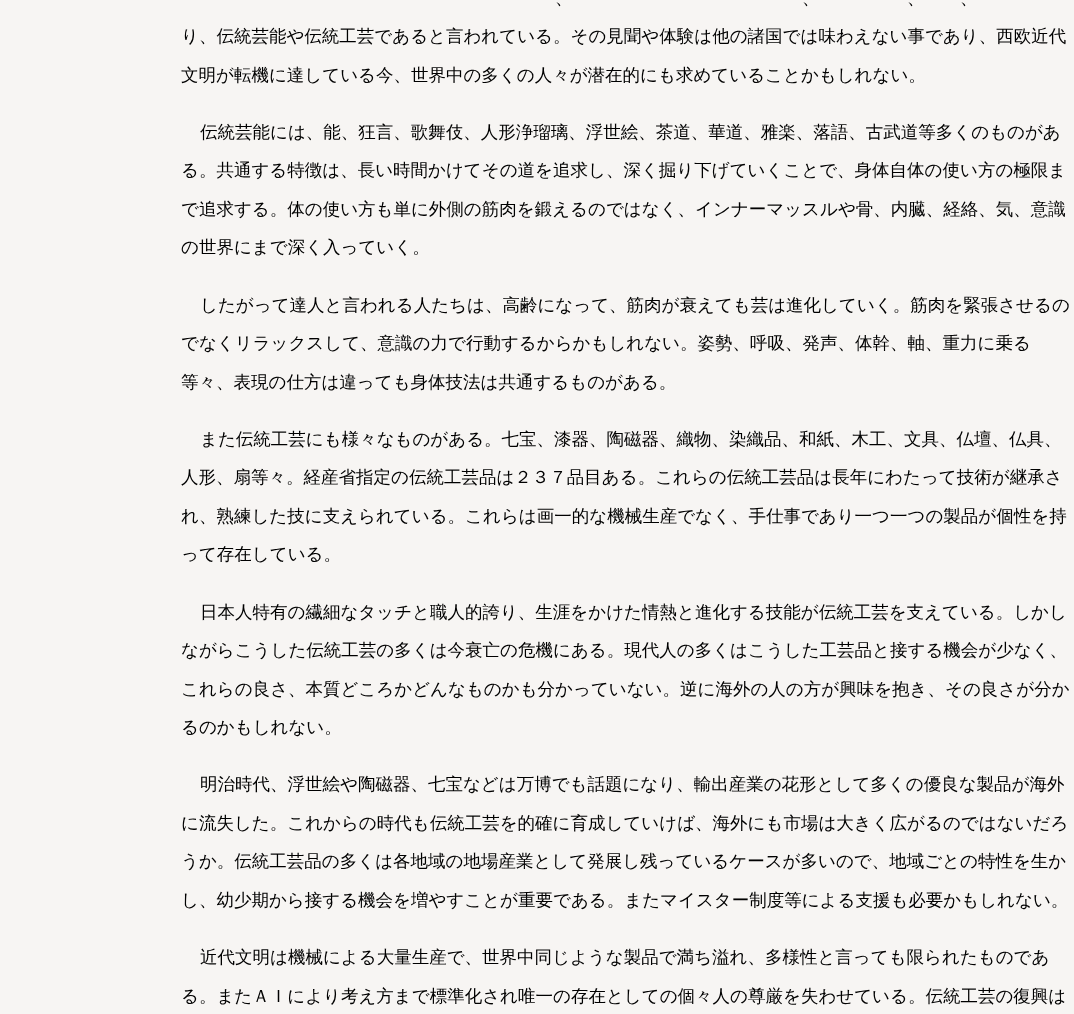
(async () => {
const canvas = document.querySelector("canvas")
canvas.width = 1074
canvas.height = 1014
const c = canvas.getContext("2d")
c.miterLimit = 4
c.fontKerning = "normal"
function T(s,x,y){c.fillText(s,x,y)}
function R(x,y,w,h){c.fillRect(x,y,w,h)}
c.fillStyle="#f7f5f3"
R(0,0,1074,1014)
c.font="500 17.5px WenQuanYi Zen Hei"
c.fillStyle="#000"
T("、",555,4)
T("、",802,4)
T("、",907,4)
T("、",960,4)
T("り、伝統芸能や伝統工芸であると言われている。その見聞や体験は他の諸国では味わえない事であり、西欧近代",181,42)
T("文明が転機に達している今、世界中の多くの人々が潜在的にも求めていることかもしれない。",181,81)
T("伝統芸能には、能、狂言、歌舞伎、人形浄瑠璃、浮世絵、茶道、華道、雅楽、落語、古武道等多くのものがあ",200,138)
T("る。共通する特徴は、長い時間かけてその道を追求し、深く掘り下げていくことで、身体自体の使い方の極限ま",181,176)
T("で追求する。体の使い方も単に外側の筋肉を鍛えるのではなく、インナーマッスルや骨、内臓、経絡、気、意識",181,215)
T("の世界にまで深く入っていく。",181,253)
T("したがって達人と言われる人たちは、高齢になって、筋肉が衰えても芸は進化していく。筋肉を緊張させるの",200,311)
T("でなくリラックスして、意識の力で行動するからかもしれない。姿勢、呼吸、発声、体幹、軸、重力に乗る",181,349)
T("等々、表現の仕方は違っても身体技法は共通するものがある。",181,388)
T("また伝統工芸にも様々なものがある。七宝、漆器、陶磁器、織物、染織品、和紙、木工、文具、仏壇、仏具、",200,445)
T("人形、扇等々。経産省指定の伝統工芸品は２３７品目ある。これらの伝統工芸品は長年にわたって技術が継承さ",181,483)
T("れ、熟練した技に支えられている。これらは画一的な機械生産でなく、手仕事であり一つ一つの製品が個性を持",181,522)
T("って存在している。",181,560)
T("日本人特有の繊細なタッチと職人的誇り、生涯をかけた情熱と進化する技能が伝統工芸を支えている。しかし",200,618)
T("ながらこうした伝統工芸の多くは今衰亡の危機にある。現代人の多くはこうした工芸品と接する機会が少なく、",181,656)
T("これらの良さ、本質どころかどんなものかも分かっていない。逆に海外の人の方が興味を抱き、その良さが分か",181,695)
T("るのかもしれない。",181,733)
T("明治時代、浮世絵や陶磁器、七宝などは万博でも話題になり、輸出産業の花形として多くの優良な製品が海外",200,790)
T("に流失した。これからの時代も伝統工芸を的確に育成していけば、海外にも市場は大きく広がるのではないだろ",181,829)
T("うか。伝統工芸品の多くは各地域の地場産業として発展し残っているケースが多いので、地域ごとの特性を生か",181,867)
T("し、幼少期から接する機会を増やすことが重要である。またマイスター制度等による支援も必要かもしれない。",181,906)
T("近代文明は機械による大量生産で、世界中同じような製品で満ち溢れ、多様性と言っても限られたものであ",200,963)
T("る。またＡＩにより考え方まで標準化され唯一の存在としての個々人の尊厳を失わせている。伝統工芸の復興は",181,1002)
})()
